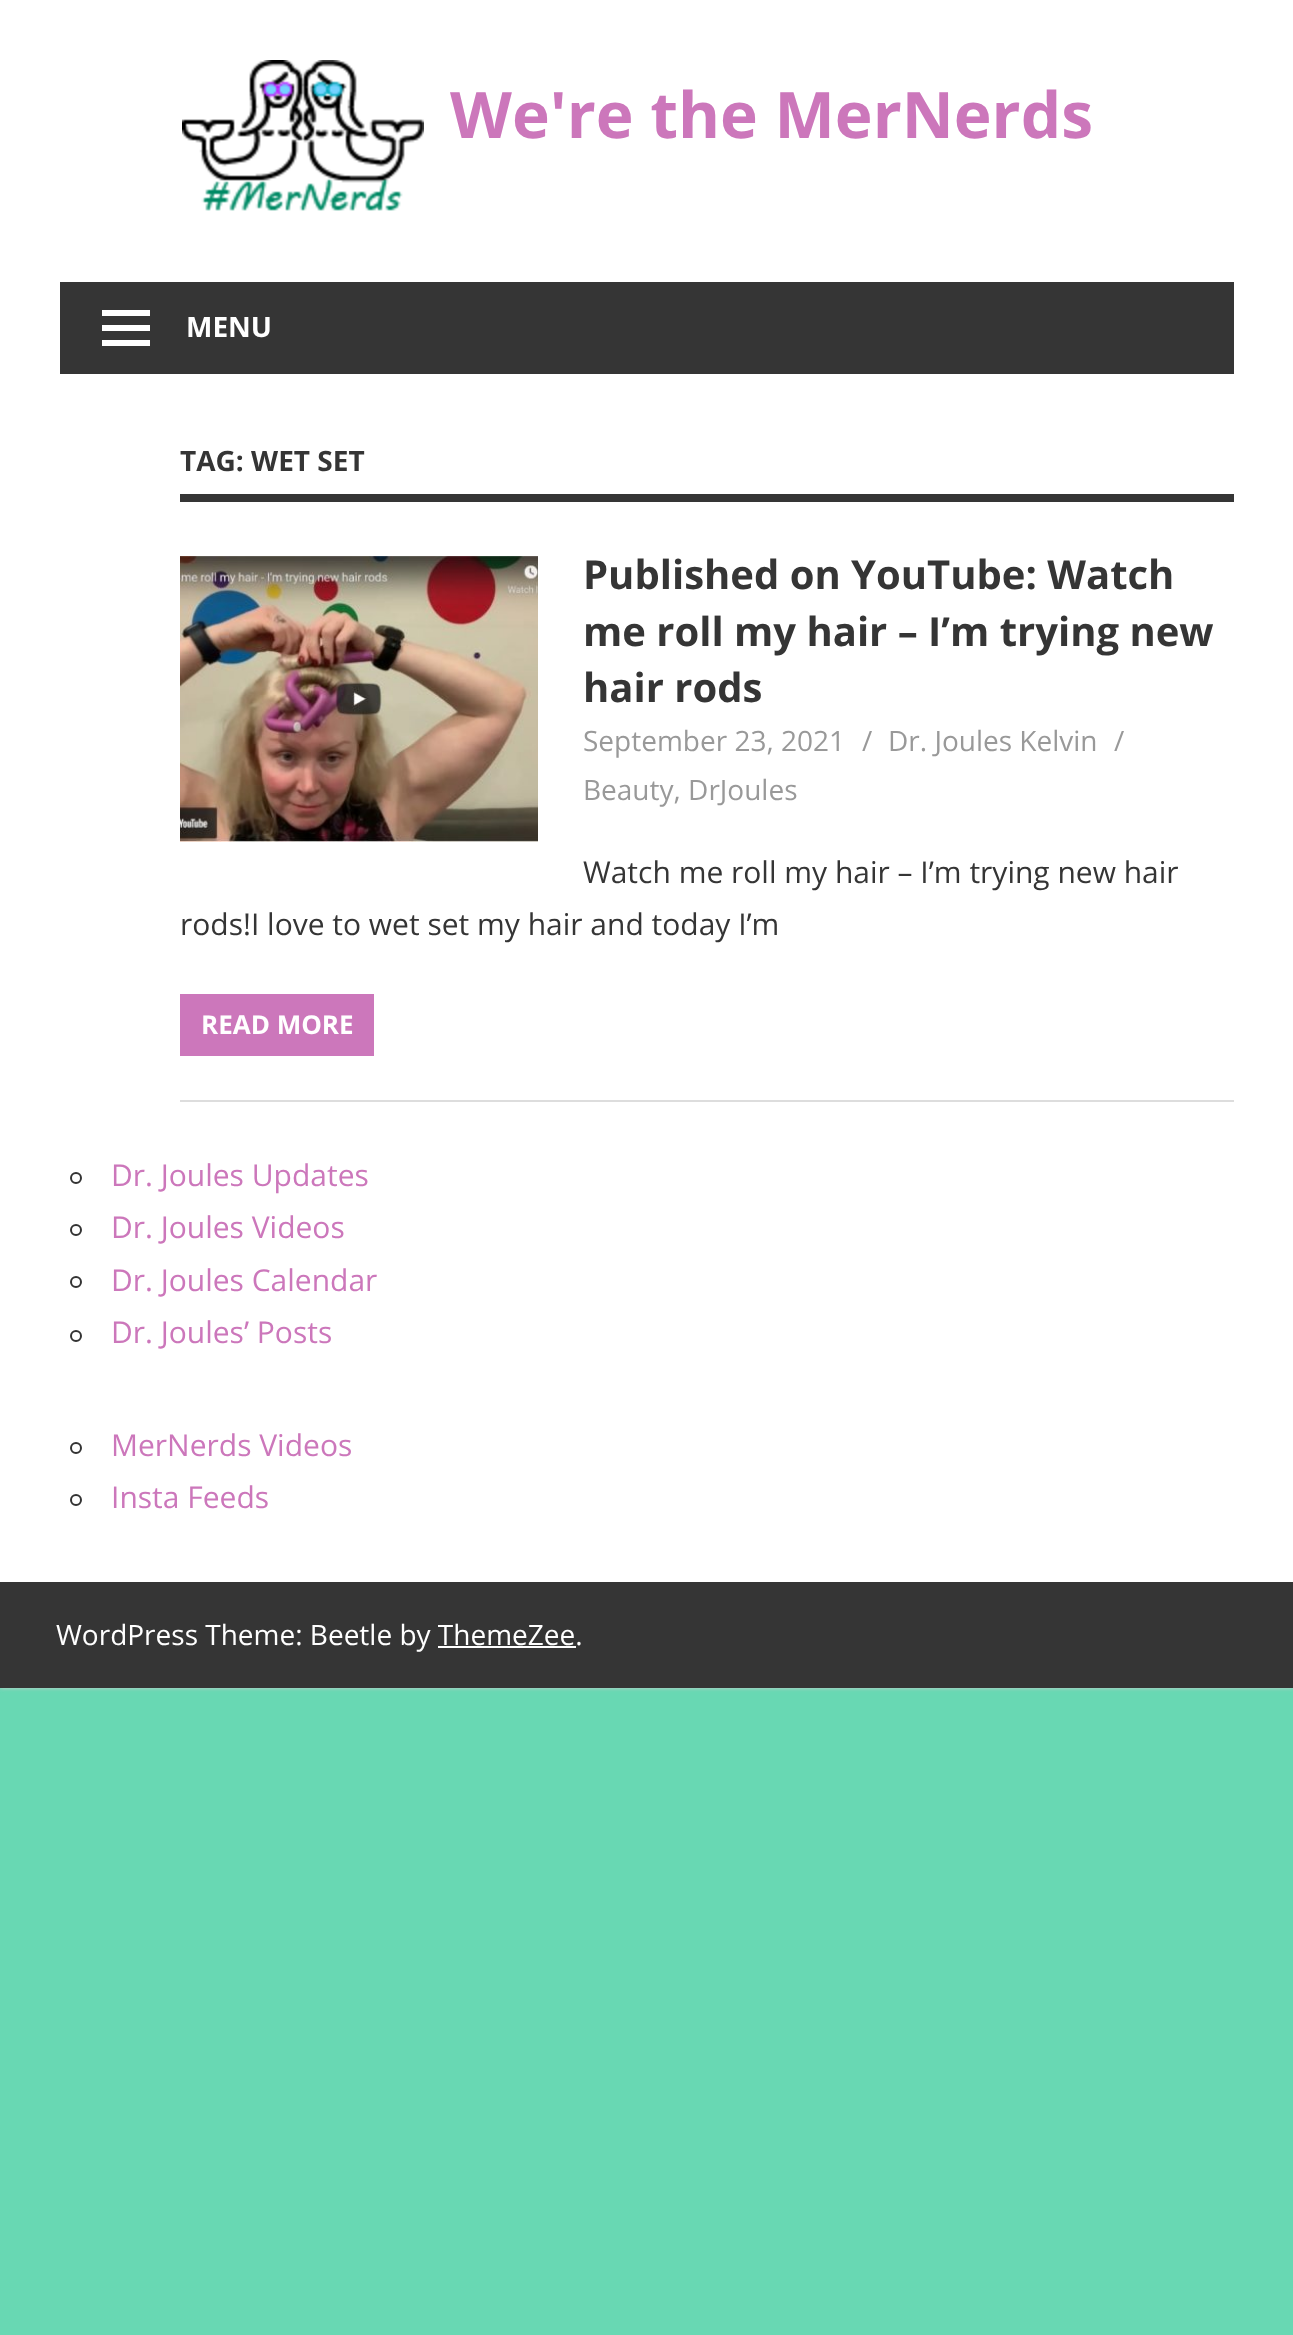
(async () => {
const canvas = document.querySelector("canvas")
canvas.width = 1293
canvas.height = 2335
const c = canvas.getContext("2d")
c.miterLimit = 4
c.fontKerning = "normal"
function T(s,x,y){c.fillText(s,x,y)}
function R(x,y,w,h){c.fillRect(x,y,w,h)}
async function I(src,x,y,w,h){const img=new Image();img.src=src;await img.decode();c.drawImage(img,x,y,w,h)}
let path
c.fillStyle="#68d8b3"
R(0,0,1293,2335)
c.fillStyle="#ccc"
c.filter="blur(2px)"
c.beginPath()
c.rect(0,0,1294,1688)
c.fill()
c.filter="none"
c.fillStyle="#fff"
R(0,0,1293,1582)
await I("1.png",182,60,242,151)
c.font="bold 64px Open Sans"
c.fillStyle="#c7b"
T("We're the MerNerds",450,138)
c.fillStyle="#353535"
R(60,282,1174,92)
c.fillStyle="#fff"
path = new Path2D("M102 346v-6h48v6zm0-36h48v6h-48zm0 21v-6h48v6z")
c.fill(path)
c.font="bold 28px Open Sans"
T("MENU",186,337)
c.fillStyle="#353535"
R(180,494,1054,8)
T("TAG: WET SET",180,471)
c.fillStyle="#ddd"
R(180,1100,1054,2)
await I("2.png",180,556,358,286)
c.font="bold 40px Open Sans"
c.fillStyle="#353535"
T("Published on YouTube: Watch",583,589)
T("me roll my hair – I’m trying new",583,646)
T("hair rods",583,702)
c.font="28px Open Sans"
c.fillStyle="#999"
T("September 23, 2021",583,751)
T("/",862,751)
T("Dr. Joules Kelvin",888,751)
T("/",1114,751)
T("Beauty, DrJoules",583,800)
c.font="30px Open Sans"
c.fillStyle="#353535"
T("Watch me roll my hair – I’m trying new hair",583,883)
T("rods!I love to wet set my hair and today I’m",180,935)
c.fillStyle="#c7b"
R(180,994,194,62)
c.font="bold 26px Open Sans"
c.fillStyle="#fff"
T("READ MORE",201,1034)
c.beginPath()
c.arc(76,1178,5,0,7)
c.strokeStyle="#333"
c.lineWidth=2
c.stroke()
c.font="30px Open Sans"
c.fillStyle="#c7b"
T("Dr. Joules Updates",111,1186)
c.beginPath()
c.arc(76,1230,5,0,7)
c.stroke()
T("Dr. Joules Videos",111,1238)
c.beginPath()
c.arc(76,1282,5,0,7)
c.stroke()
T("Dr. Joules Calendar",111,1291)
c.beginPath()
c.arc(76,1336,5,0,7)
c.stroke()
T("Dr. Joules’ Posts",111,1343)
c.beginPath()
c.arc(76,1448,5,0,7)
c.stroke()
T("MerNerds Videos",111,1456)
c.beginPath()
c.arc(76,1500,5,0,7)
c.stroke()
T("Insta Feeds",111,1508)
c.fillStyle="#353535"
R(0,1582,1293,106)
c.font="28px Open Sans"
c.fillStyle="#fff"
T("WordPress Theme: Beetle by ThemeZee.",56,1645)
R(438,1646,138,2)
})()
